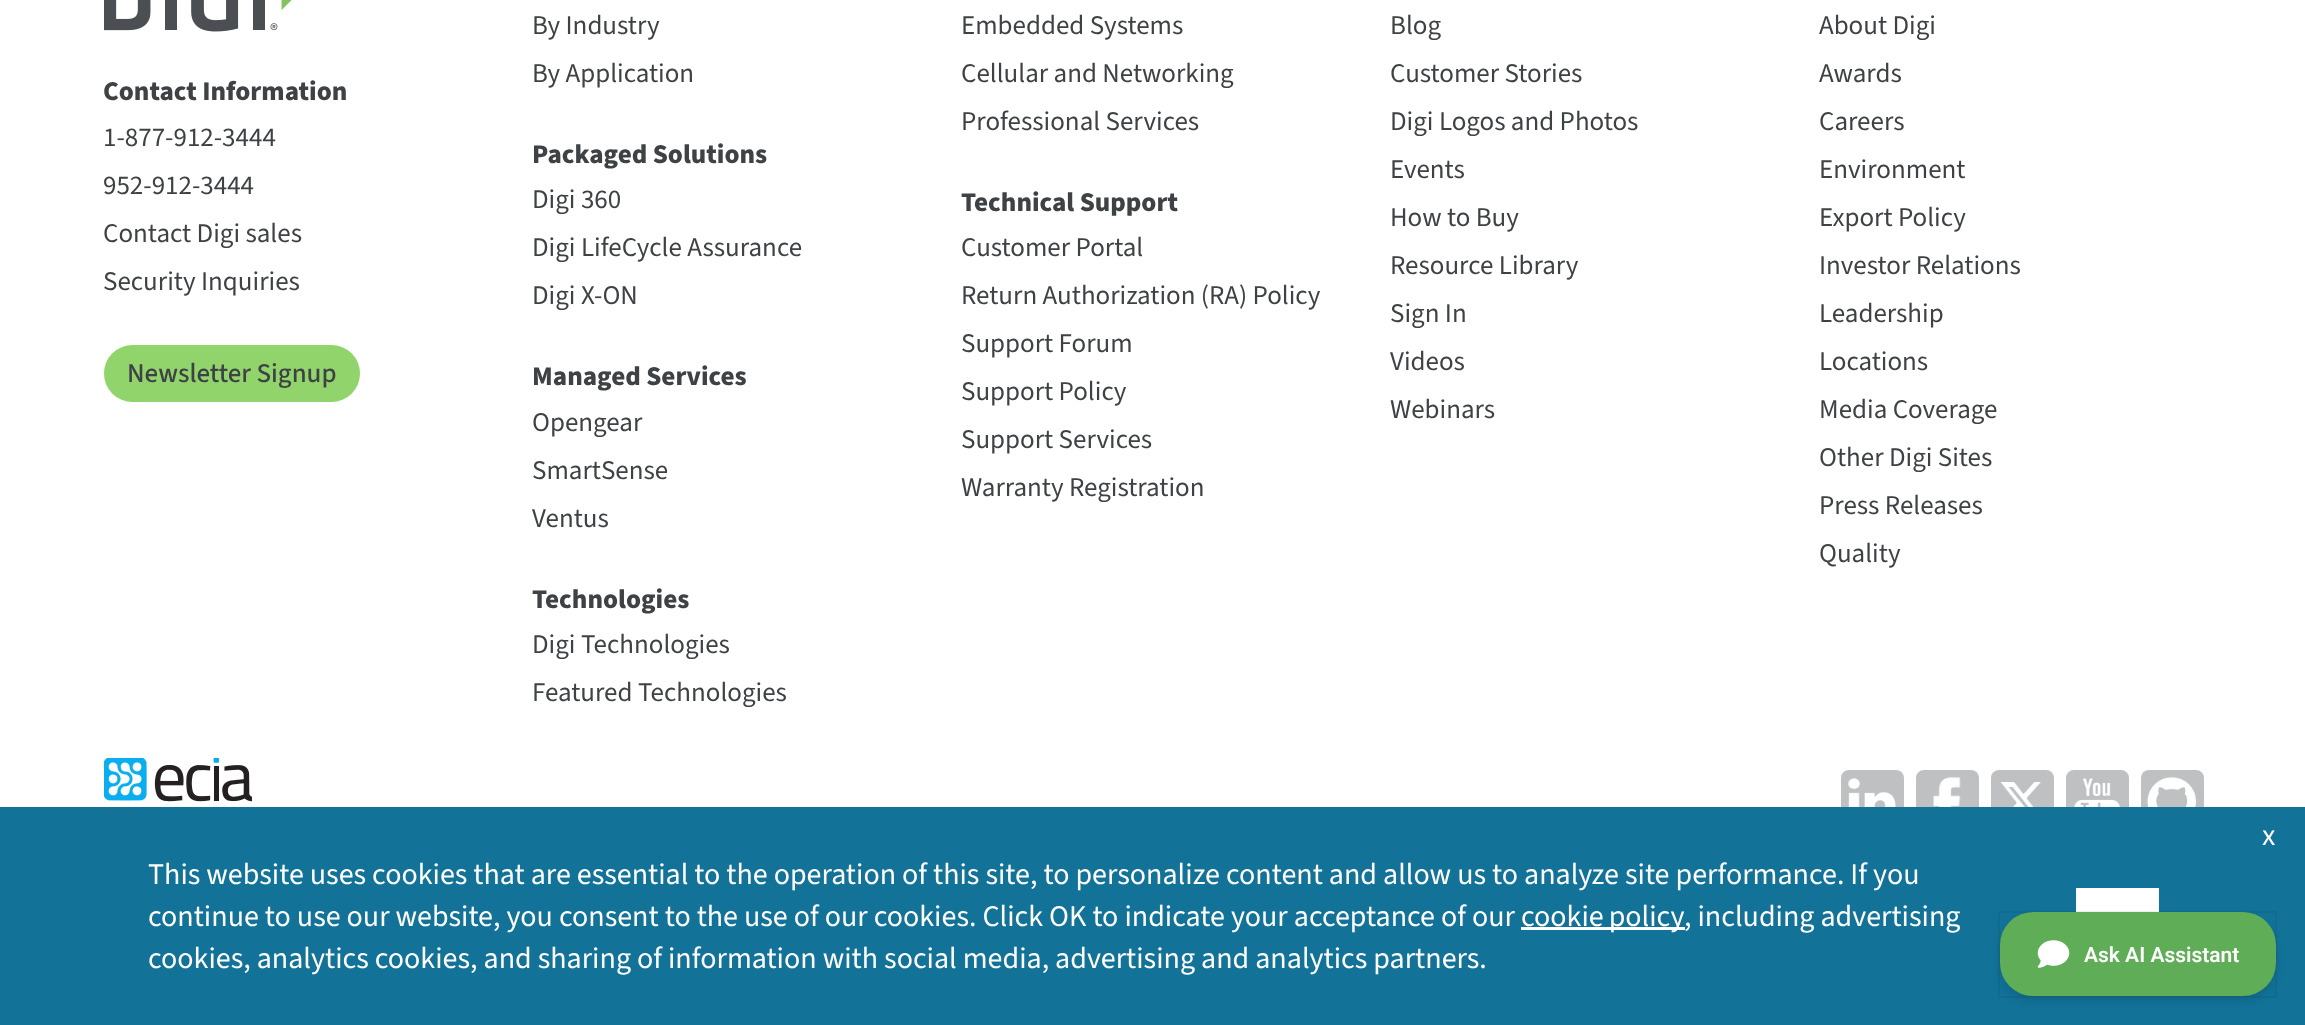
(async () => {
const canvas = document.querySelector("canvas")
canvas.width = 2305
canvas.height = 1025
const c = canvas.getContext("2d")
c.miterLimit = 4
c.fontKerning = "normal"
function T(s,x,y){c.fillText(s,x,y)}
function R(x,y,w,h){c.fillRect(x,y,w,h)}
function Q(x,y,w,h,r){c.beginPath();c.roundRect(x,y,w,h,r);c.fill()}
async function I(src,x,y,w,h){const img=new Image();img.src=src;await img.decode();c.drawImage(img,x,y,w,h)}
c.fillStyle="#fff"
R(0,0,2305,1025)
await I("1.png",104,0,188,32)
c.font="200 27px 'Source Sans 3'"
c.fillStyle="#3f4245"
T("Contact Information",103,100)
c.font="200 27px 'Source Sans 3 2'"
T("1-877-912-3444",103,146)
T("952-912-3444",103,194)
T("Contact Digi sales",103,242)
T("Security Inquiries",103,290)
c.fillStyle="#91d46c"
Q(104,345,256,57,28.5)
c.font="200 27px 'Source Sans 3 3'"
c.fillStyle="#3f4245"
T("Newsletter Signup",127,382)
c.font="200 27px 'Source Sans 3 2'"
T("By Industry",532,34)
T("By Application",532,82)
c.font="200 27px 'Source Sans 3'"
T("Packaged Solutions",532,163)
c.font="200 27px 'Source Sans 3 2'"
T("Digi 360",532,208)
T("Digi LifeCycle Assurance",532,256)
T("Digi X-ON",532,304)
c.font="200 27px 'Source Sans 3'"
T("Managed Services",532,385)
c.font="200 27px 'Source Sans 3 2'"
T("Opengear",532,431)
T("SmartSense",532,479)
T("Ventus",532,527)
c.font="200 27px 'Source Sans 3'"
T("Technologies",532,608)
c.font="200 27px 'Source Sans 3 2'"
T("Digi Technologies",532,653)
T("Featured Technologies",532,701)
T("Embedded Systems",961,34)
T("Cellular and Networking",961,82)
T("Professional Services",961,130)
c.font="200 27px 'Source Sans 3'"
T("Technical Support",961,211)
c.font="200 27px 'Source Sans 3 2'"
T("Customer Portal",961,256)
T("Return Authorization (RA) Policy",961,304)
T("Support Forum",961,352)
T("Support Policy",961,400)
T("Support Services",961,448)
T("Warranty Registration",961,496)
T("Blog",1390,34)
T("Customer Stories",1390,82)
T("Digi Logos and Photos",1390,130)
T("Events",1390,178)
T("How to Buy",1390,226)
T("Resource Library",1390,274)
T("Sign In",1390,322)
T("Videos",1390,370)
T("Webinars",1390,418)
T("About Digi",1819,34)
T("Awards",1819,82)
T("Careers",1819,130)
T("Environment",1819,178)
T("Export Policy",1819,226)
T("Investor Relations",1819,274)
T("Leadership",1819,322)
T("Locations",1819,370)
T("Media Coverage",1819,418)
T("Other Digi Sites",1819,466)
T("Press Releases",1819,514)
T("Quality",1819,562)
await I("2.png",104,758,148,44)
c.fillStyle="#bec0c2"
Q(1841,770,63,63,8)
await I("3.png",1848,778,48,29)
Q(1916,770,63,63,8)
await I("4.png",1933,777,28,30)
Q(1991,770,63,63,8)
await I("5.png",2000,782,41,25)
Q(2066,770,63,63,8)
await I("6.png",2074,778,46,29)
Q(2141,770,63,63,8)
await I("7.png",2147,777,49,30)
c.fillStyle="#127298"
R(0,807,2305,218)
c.font="200 30px 'Source Sans 3 2'"
c.fillStyle="#fff"
T("x",2262,845)
T("This website uses cookies that are essential to the operation of this site, to personalize content and allow us to analyze site performance. If you",148,884)
T("continue to use our website, you consent to the use of our cookies. Click OK to indicate your acceptance of our",148,926)
R(1521,927,164,3)
c.wordSpacing="-1px"
T("cookie policy",1521,926)
c.wordSpacing="0px"
T(", including advertising",1684,926)
T("cookies, analytics cookies, and sharing of information with social media, advertising and analytics partners.",148,968)
R(2076,888,83,24)
c.fillStyle="#0000001a"
c.filter="blur(4px)"
c.beginPath()
c.roundRect(2000,917,276,84,33)
c.fill()
c.filter="none"
c.strokeStyle="#0000000d"
c.lineWidth=2
c.strokeRect(1999,912,277,85)
c.fillStyle="#5fad56"
Q(2000,912,276,84,33)
await I("8.png",2037,940,33,28)
c.font="600 21px Roboto"
c.fillStyle="#fff"
T("Ask AI Assistant",2084,962)
})()
